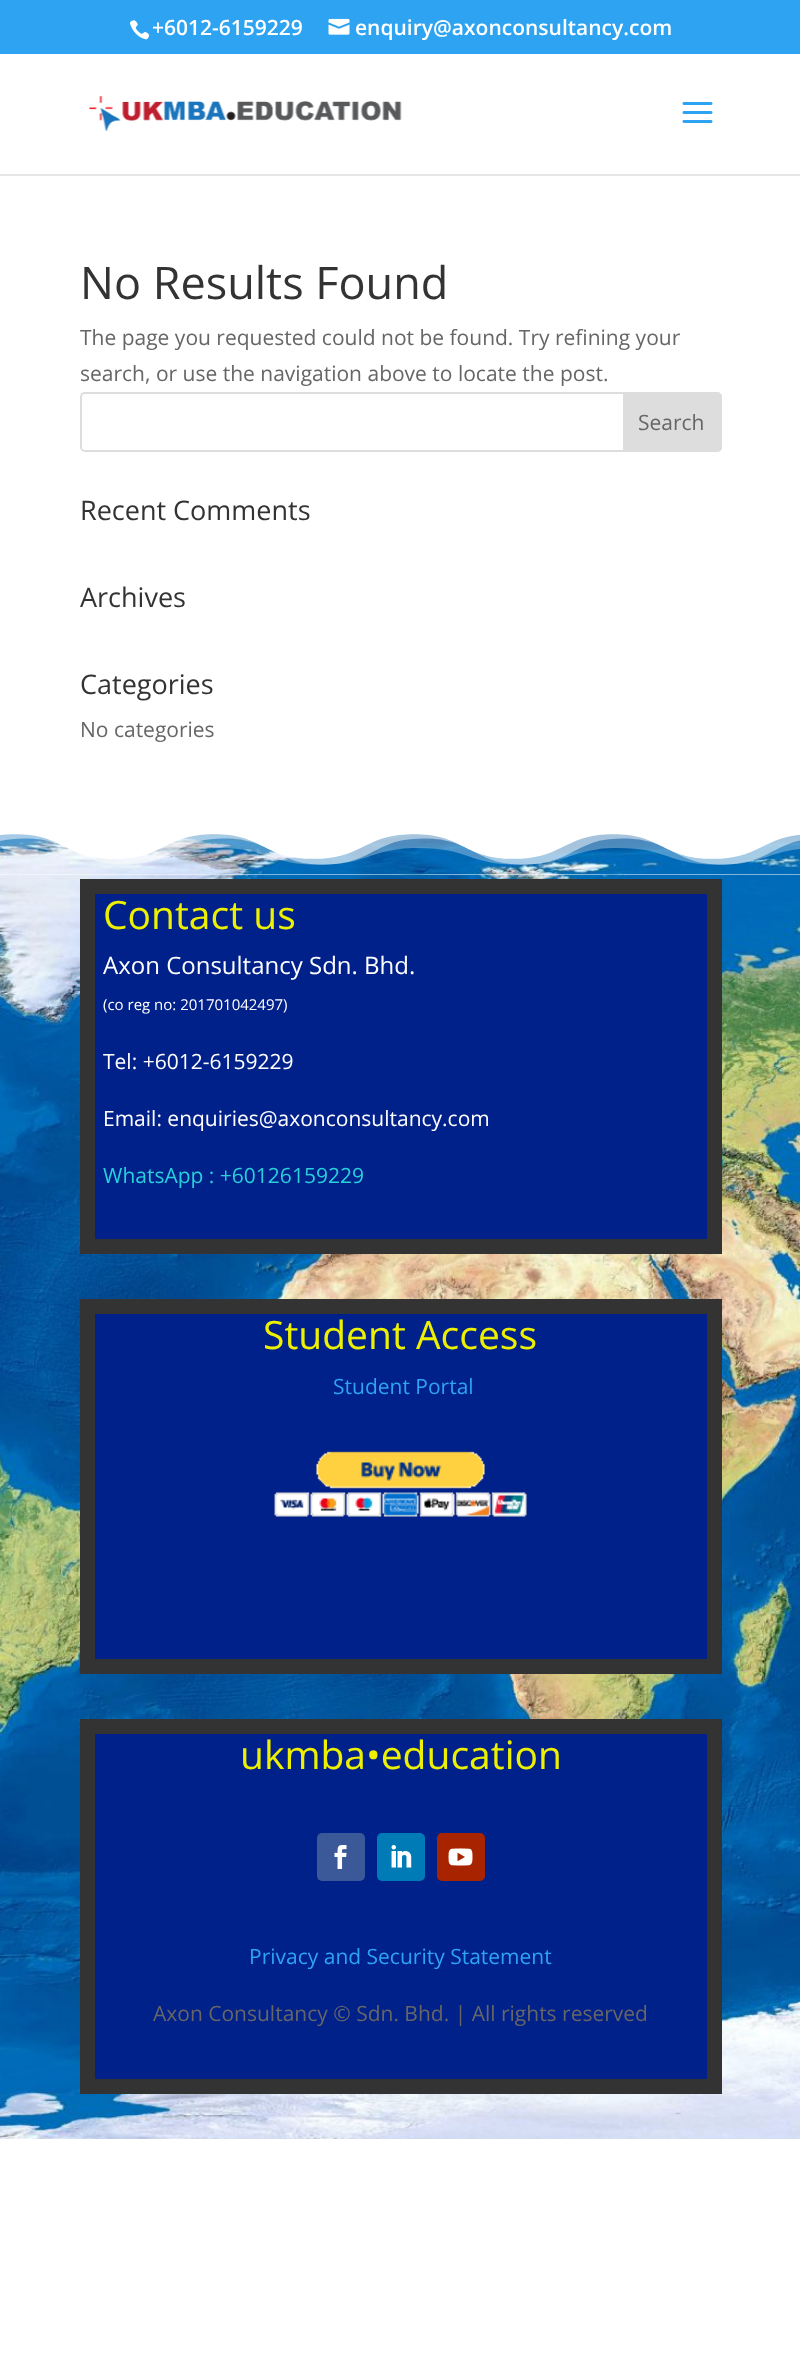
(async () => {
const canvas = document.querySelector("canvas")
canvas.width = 800
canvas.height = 2374
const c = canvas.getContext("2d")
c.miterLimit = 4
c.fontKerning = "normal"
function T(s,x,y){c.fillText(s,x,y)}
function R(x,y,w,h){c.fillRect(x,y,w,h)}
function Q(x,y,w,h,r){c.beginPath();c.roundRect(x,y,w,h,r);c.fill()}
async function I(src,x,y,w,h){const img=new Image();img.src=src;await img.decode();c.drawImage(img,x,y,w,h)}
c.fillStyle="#fff"
R(0,0,800,2374)
c.fillStyle="#2ea3f2"
R(0,0,800,54)
await I("1.png",129,20,21,20)
c.font="600 21px Open Sans"
c.fillStyle="#fff"
T("+6012-6159229",152,35)
await I("2.png",328,18,22,17)
T("enquiry@axonconsultancy.com",355,35)
c.fillStyle="#e6e6e6"
R(0,174,800,2)
await I("3.png",89,96,313,35)
await I("4.png",682,102,31,21)
c.font="45px Open Sans"
c.fillStyle="#333"
T("No Results Found",80,299)
c.font="21px Open Sans"
c.fillStyle="#666"
T("The page you requested could not be found. Try refining your",80,345)
T("search, or use the navigation above to locate the post.",80,381)
c.beginPath()
c.roundRect(81,393,640,58,4)
c.strokeStyle="#ddd"
c.lineWidth=2
c.stroke()
c.fillStyle="#ddd"
c.beginPath()
c.roundRect(624,393,97,58,[0,4,4,0])
c.fill()
c.stroke()
c.fillStyle="#666"
T("Search",638,430)
c.font="27px Open Sans"
c.fillStyle="#333"
T("Recent Comments",80,520)
T("Archives",80,607)
T("Categories",80,694)
c.font="21px Open Sans"
c.fillStyle="#666"
T("No categories",80,737)
await I("5.png",0,834,800,1305)
await I("6.png",0,834,800,41)
c.fillStyle="#00208a"
c.beginPath()
c.rect(87.5,886.5,627,360)
c.fill()
c.strokeStyle="#333"
c.lineWidth=15
c.stroke()
c.font="39px Open Sans"
c.fillStyle="#edf000"
T("Contact us",103,929)
c.font="24px Open Sans"
c.fillStyle="#fff"
T("Axon Consultancy Sdn. Bhd.",103,974)
c.font="15px Open Sans"
T("(co reg no: 201701042497)",103,1010)
c.font="21px Open Sans"
T("Tel: +6012-6159229",103,1069)
T("Email: enquiries@axonconsultancy.com",103,1126)
c.fillStyle="#29cfdb"
T("WhatsApp : +60126159229",103,1183)
c.fillStyle="#00208a"
c.beginPath()
c.rect(87.5,1306.5,627,360)
c.fill()
c.stroke()
c.font="39px Open Sans"
c.fillStyle="#edf000"
T("Student Access",263,1349)
c.font="21px Open Sans"
c.fillStyle="#2ea3f2"
T("Student Portal",333,1394)
await I("7.png",274,1451,253,66)
c.fillStyle="#00208a"
c.beginPath()
c.rect(87.5,1726.5,627,360)
c.fill()
c.stroke()
c.font="39px Open Sans"
c.fillStyle="#edf000"
T("ukmba•education",240,1769)
c.fillStyle="#3b5998"
Q(317,1833,48,48,5)
await I("8.png",334,1845,13,24)
c.fillStyle="#007bb6"
Q(377,1833,48,48,5)
await I("9.png",391,1845,21,23)
c.fillStyle="#a82400"
Q(437,1833,48,48,5)
await I("10.png",448,1848,25,18)
c.font="21px Open Sans"
c.fillStyle="#2ea3f2"
T("Privacy and Security Statement",249,1964)
c.fillStyle="#666"
T("Axon Consultancy © Sdn. Bhd. | All rights reserved",153,2021)
})()
